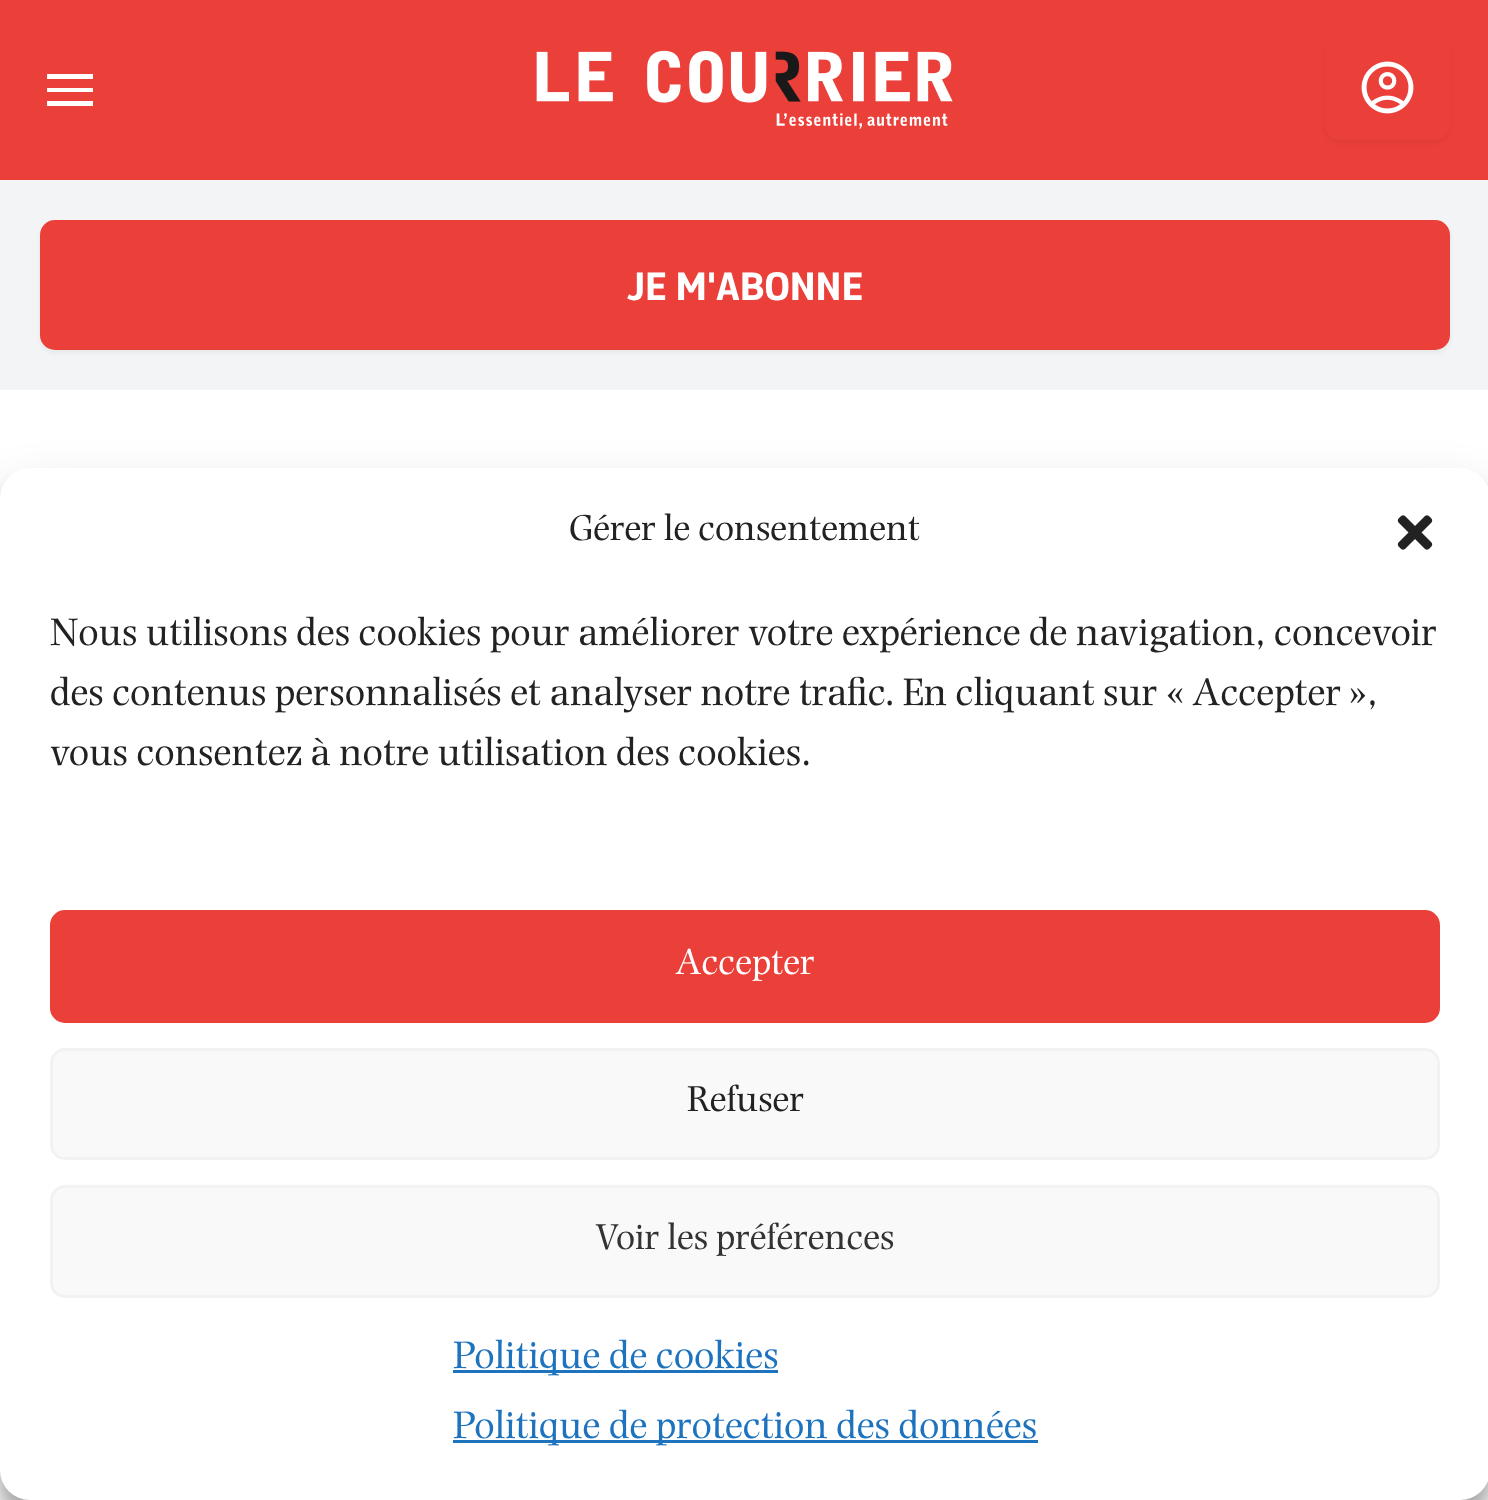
(async () => {
const canvas = document.querySelector("canvas")
canvas.width = 1488
canvas.height = 1500
const c = canvas.getContext("2d")
c.miterLimit = 4
c.fontKerning = "normal"
function T(s,x,y){c.fillText(s,x,y)}
function R(x,y,w,h){c.fillRect(x,y,w,h)}
function Q(x,y,w,h,r){c.beginPath();c.roundRect(x,y,w,h,r);c.fill()}
async function I(src,x,y,w,h){const img=new Image();img.src=src;await img.decode();c.drawImage(img,x,y,w,h)}
let path
c.fillStyle="#fff"
R(0,0,1488,1500)
c.fillStyle="#eb3f3a"
R(0,0,1488,180)
c.fillStyle="#fff"
path = new Path2D("M47 106v-5h46v5zm0-14v-4h46v4zm0-13v-5h46v5z")
c.fill(path)
await I("1.png",536,50,417,79)
c.fillStyle="#0000000d"
c.filter="blur(2.5px)"
c.beginPath()
c.roundRect(1325,43,125,100,15)
c.fill()
c.filter="none"
c.fillStyle="#eb3f3a"
Q(1325,40,125,100,15)
await I("2.png",1361,61,53,53)
c.fillStyle="#f3f4f6"
R(0,180,1488,210)
c.fillStyle="#0000000d"
c.filter="blur(2.5px)"
c.beginPath()
c.roundRect(40,223,1410,130,15)
c.fill()
c.filter="none"
c.fillStyle="#eb3f3a"
Q(40,220,1410,130,15)
c.font="bold 40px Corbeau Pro"
c.fillStyle="#fff"
T("JE M'ABONNE",627,300)
c.fillStyle="#0000003b"
c.filter="blur(7.5px)"
c.beginPath()
c.roundRect(0,483,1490,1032,30)
c.fill()
c.filter="none"
c.fillStyle="#00000030"
c.filter="blur(25px)"
c.beginPath()
c.roundRect(0,493,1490,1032,30)
c.fill()
c.filter="none"
c.fillStyle="#fff"
Q(0,468,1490,1032,30)
c.font="37.5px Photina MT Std"
c.fillStyle="#222"
T("Gérer le consentement",569,540)
await I("3.png",1397,515,36,35)
c.font="40px Photina MT Std"
T("Nous utilisons des cookies pour améliorer votre expérience de navigation, concevoir",50,645)
T("des contenus personnalisés et analyser notre trafic. En cliquant sur « Accepter »,",50,705)
T("vous consentez à notre utilisation des cookies.",50,765)
c.fillStyle="#eb4039"
c.beginPath()
c.roundRect(51.5,911.5,1387,110,13.5)
c.fill()
c.strokeStyle="#eb4039"
c.lineWidth=3
c.stroke()
c.font="37.5px Photina MT Std"
c.fillStyle="#fff"
T("Accepter",675,974)
c.fillStyle="#f9f9f9"
c.beginPath()
c.roundRect(51.5,1049.5,1387,109,13.5)
c.fill()
c.strokeStyle="#f2f2f2"
c.stroke()
c.fillStyle="#222"
T("Refuser",687,1111)
c.fillStyle="#f9f9f9"
c.beginPath()
c.roundRect(51.5,1186.5,1387,110,13.5)
c.fill()
c.stroke()
c.fillStyle="#333"
T("Voir les préférences",595,1249)
c.fillStyle="#1e73be"
R(453,1370,325,3)
c.font="40px Photina MT Std"
T("Politique de cookies",453,1368)
R(453,1440,585,3)
T("Politique de protection des données",453,1438)
})()
